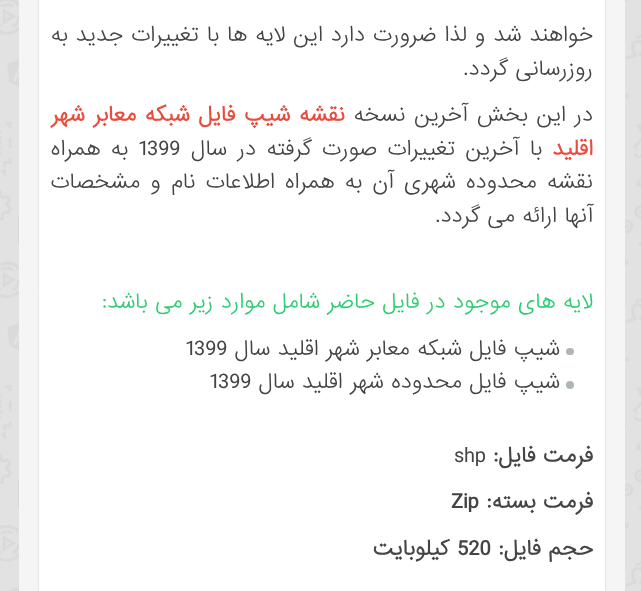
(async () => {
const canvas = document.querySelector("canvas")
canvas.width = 641
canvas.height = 591
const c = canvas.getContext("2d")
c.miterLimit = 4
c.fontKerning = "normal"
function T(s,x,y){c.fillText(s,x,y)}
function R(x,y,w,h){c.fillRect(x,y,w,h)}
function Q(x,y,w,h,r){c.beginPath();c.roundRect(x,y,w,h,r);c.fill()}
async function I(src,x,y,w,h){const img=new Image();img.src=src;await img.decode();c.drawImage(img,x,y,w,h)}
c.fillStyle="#e2e2e2"
R(0,0,641,591)
await I("1.png",0,0,641,591)
c.fillStyle="#f5f5f5"
R(19,0,606,591)
c.fillStyle="#fff"
c.beginPath()
c.rect(38.5,-.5,567,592)
c.fill()
c.strokeStyle="#e1e8ed"
c.stroke()
c.wordSpacing="0.5px"
c.direction="rtl"
c.font="300 20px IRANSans"
c.fillStyle="#444"
T("خواهند شد و لذا ضرورت دارد این لایه ها با تغییرات جدید به",593,41)
c.wordSpacing="0px"
T("روزرسانی گردد.",593,75)
c.wordSpacing="1.25px"
T("در این بخش آخرین نسخه",593,121)
c.font="bold 20px IRANSans"
c.fillStyle="#e74c3c"
T("نقشه شیپ فایل شبکه معابر شهر",345,121)
c.wordSpacing="0px"
T("اقلید",593,155)
c.wordSpacing="3px"
c.font="300 20px IRANSans"
c.fillStyle="#444"
T("با آخرین تغییرات صورت گرفته در سال",542,155)
c.wordSpacing="0px"
c.direction="ltr"
T("1399",138,155)
c.wordSpacing="3px"
c.direction="rtl"
T("به همراه",128,155)
c.wordSpacing="2.75px"
T("نقشه محدوده شهری آن به همراه اطلاعات نام و مشخصات",593,188)
c.wordSpacing="0px"
T("آنها ارائه می گردد.",593,222)
c.fillStyle="#2ecc71"
T("لایه های موجود در فایل حاضر شامل موارد زیر می باشد:",593,308)
c.fillStyle="#aeb6b8"
Q(566,348,8,7,3.5)
c.fillStyle="#444"
T("شیپ فایل شبکه معابر شهر اقلید سال",560,355)
c.direction="ltr"
T("1399",185,355)
c.fillStyle="#aeb6b8"
c.beginPath()
c.arc(570,385,4,0,7)
c.fill()
c.direction="rtl"
c.fillStyle="#444"
T("شیپ فایل محدوده شهر اقلید سال",560,388)
c.direction="ltr"
T("1399",209,388)
c.direction="rtl"
c.font="bold 20px IRANSans"
T("فرمت فایل:",593,462)
c.direction="ltr"
c.font="300 20px IRANSans"
T("shp",454,462)
c.direction="rtl"
c.font="bold 20px IRANSans"
T("فرمت بسته:",593,508)
c.direction="ltr"
T("Zip",451,508)
c.direction="rtl"
T("حجم فایل:",593,555)
c.direction="ltr"
T("520",457,555)
c.direction="rtl"
T("کیلوبایت",449,555)
})()
